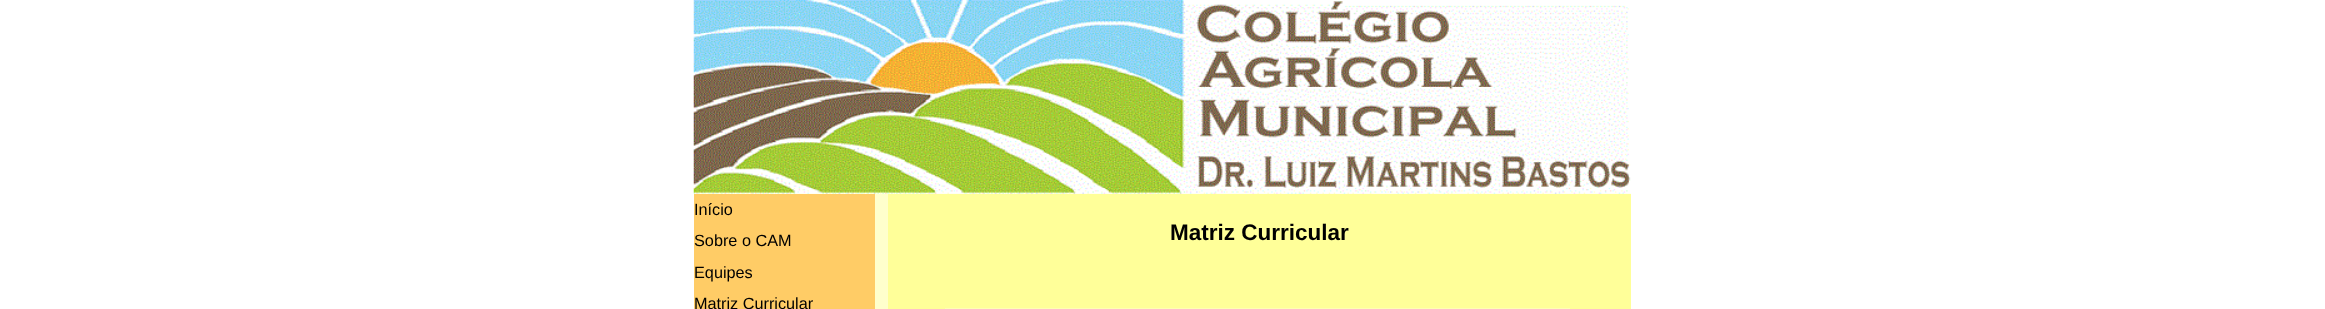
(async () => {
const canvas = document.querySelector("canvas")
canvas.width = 2325
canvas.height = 309
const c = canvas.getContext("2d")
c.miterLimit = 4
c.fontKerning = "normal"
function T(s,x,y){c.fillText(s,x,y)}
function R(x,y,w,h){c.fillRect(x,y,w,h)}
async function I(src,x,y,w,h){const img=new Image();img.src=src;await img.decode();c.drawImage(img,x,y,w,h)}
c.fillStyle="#fff"
R(0,0,2325,309)
c.fillStyle="#ffc"
R(694,193,937,116)
await I("1.png",693,0,938,194)
c.fillStyle="#fc6"
R(694,194,181,115)
c.font="16.25px Liberation Sans"
c.fillStyle="#000"
T("Início",694,215)
T("Sobre o CAM",694,246)
T("Equipes",694,278)
T("Matriz Curricular",694,309)
c.fillStyle="#ff9"
R(888,194,743,115)
c.font="bold 22.5px Liberation Sans"
c.fillStyle="#000"
T("Matriz Curricular",1170,240)
c.fillStyle="#ffffb3"
R(945,308,625,1)
})()
